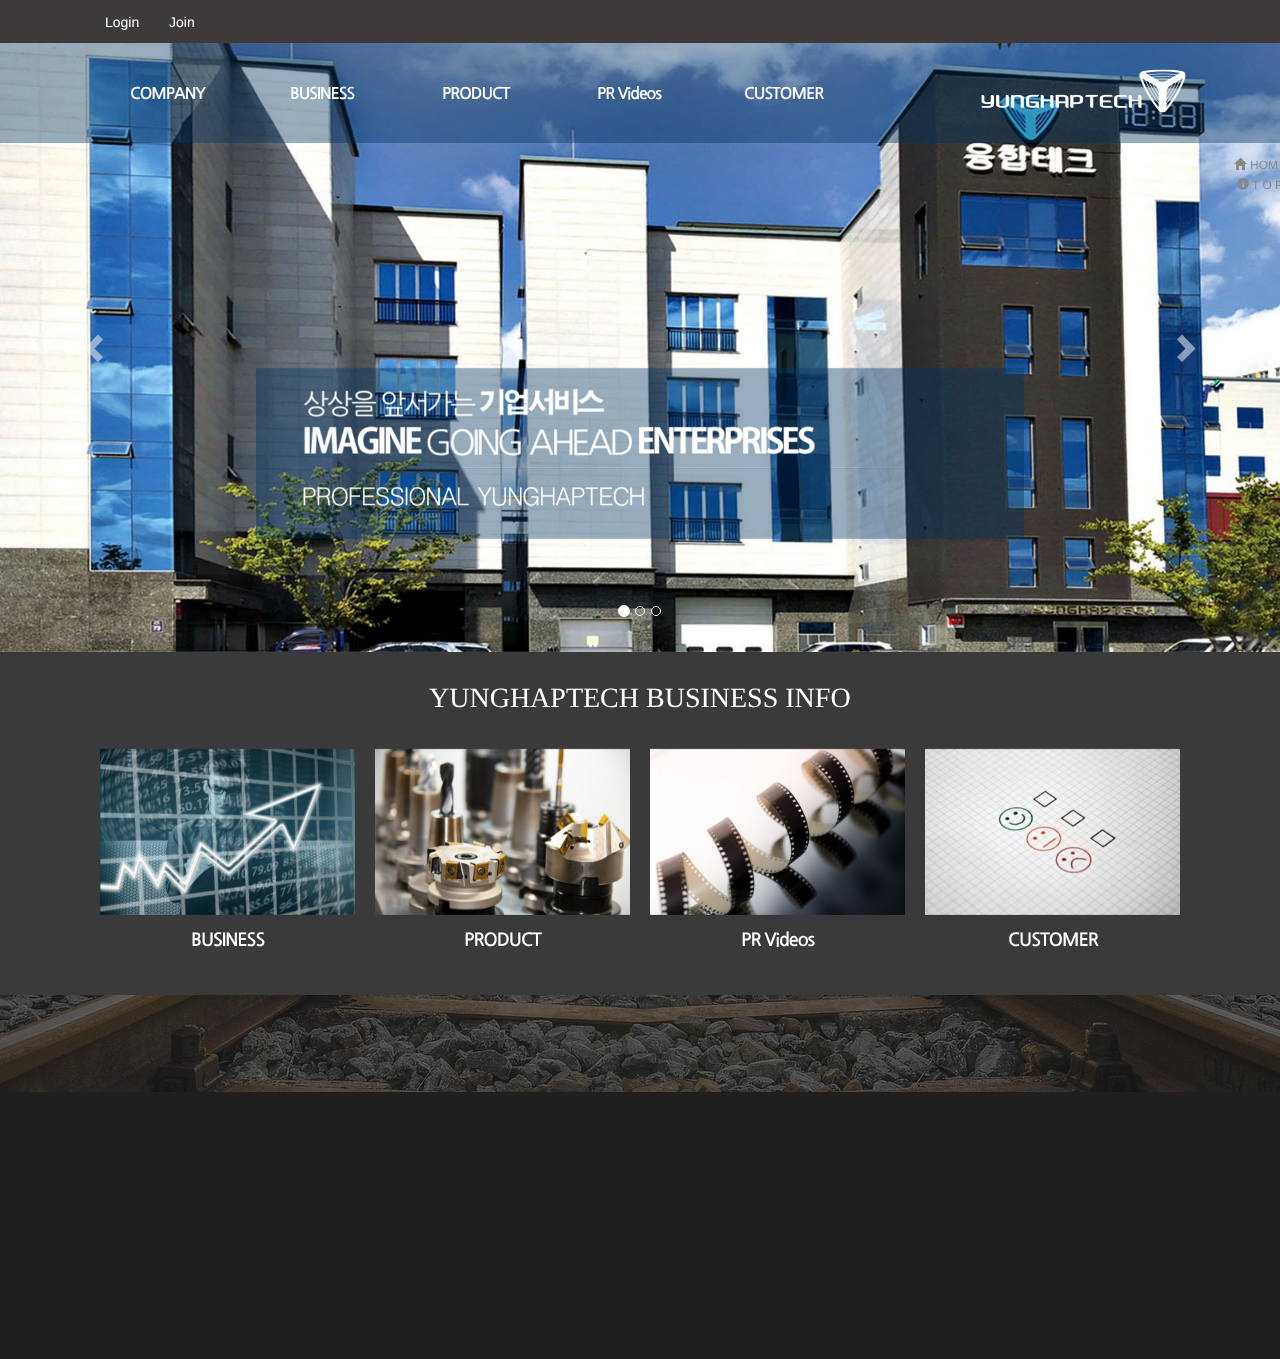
(async () => {
const canvas = document.querySelector("canvas")
canvas.width = 1280
canvas.height = 1359
const c = canvas.getContext("2d")
c.miterLimit = 4
c.fontKerning = "normal"
function T(s,x,y){c.fillText(s,x,y)}
function R(x,y,w,h){c.fillRect(x,y,w,h)}
async function I(src,x,y,w,h){const img=new Image();img.src=src;await img.decode();c.drawImage(img,x,y,w,h)}
let path
c.fillStyle="#fff"
R(0,0,1280,1359)
c.fillStyle="#3e3a39"
R(0,0,1280,43)
c.font="14px Liberation Sans"
c.fillStyle="#fff"
T("Login",105,27)
T("Join",169,27)
await I("1.png",0,43,1280,609)
await I("2.png",256,367,768,102)
await I("3.png",256,468,768,72)
c.fillStyle="#ffffff80"
path = new Path2D("M103 339.5l-8.5 9l8.5 8.5l-5 5l-13.5-13.5l13.5-14z")
c.fill(path)
path = new Path2D("M1195.5 348.5l-13.5 13.5l-5-5l8.5-8.5l-8.5-9l5-5z")
c.fill(path)
c.fillStyle="#fff"
c.beginPath()
c.arc(624,611,5.5,0,7)
c.fill()
c.strokeStyle="#fff"
c.stroke()
c.beginPath()
c.arc(640,611,4.5,0,7)
c.stroke()
c.beginPath()
c.arc(656,611,4.5,0,7)
c.stroke()
c.fillStyle="#00336066"
R(0,43,1280,100)
c.letterSpacing="-1px"
c.font="bold 16px NanumGothic"
c.fillStyle="#fff"
T("COMPANY",130,99)
T("BUSINESS",290,99)
T("PRODUCT",442,99)
T("PR Videos",597,99)
T("CUSTOMER",744,99)
await I("4.png",981,69,205,44)
await I("5.png",1234,157,13,13)
c.letterSpacing="0px"
c.font="12px Liberation Sans"
c.fillStyle="#898989"
T("HOM",1250,169)
await I("6.png",1237,178,12,12)
T("T O P",1252,189)
c.fillStyle="#3a3a3a"
R(0,652,1280,343)
c.font="28px Liberation Serif"
c.fillStyle="#fff"
T("YUNGHAPTECH BUSINESS INFO",429,707)
await I("7.png",100,748,255,167)
c.letterSpacing="-1px"
c.font="bold 18px NanumGothic"
T("BUSINESS",191,946)
await I("8.png",375,748,255,167)
T("PRODUCT",464,946)
await I("9.png",650,748,255,167)
T("PR Videos",741,946)
await I("10.png",925,748,255,167)
T("CUSTOMER",1008,946)
c.fillStyle="#1f1f1f"
R(0,1092,1280,267)
await I("11.png",0,995,1280,97)
})()
